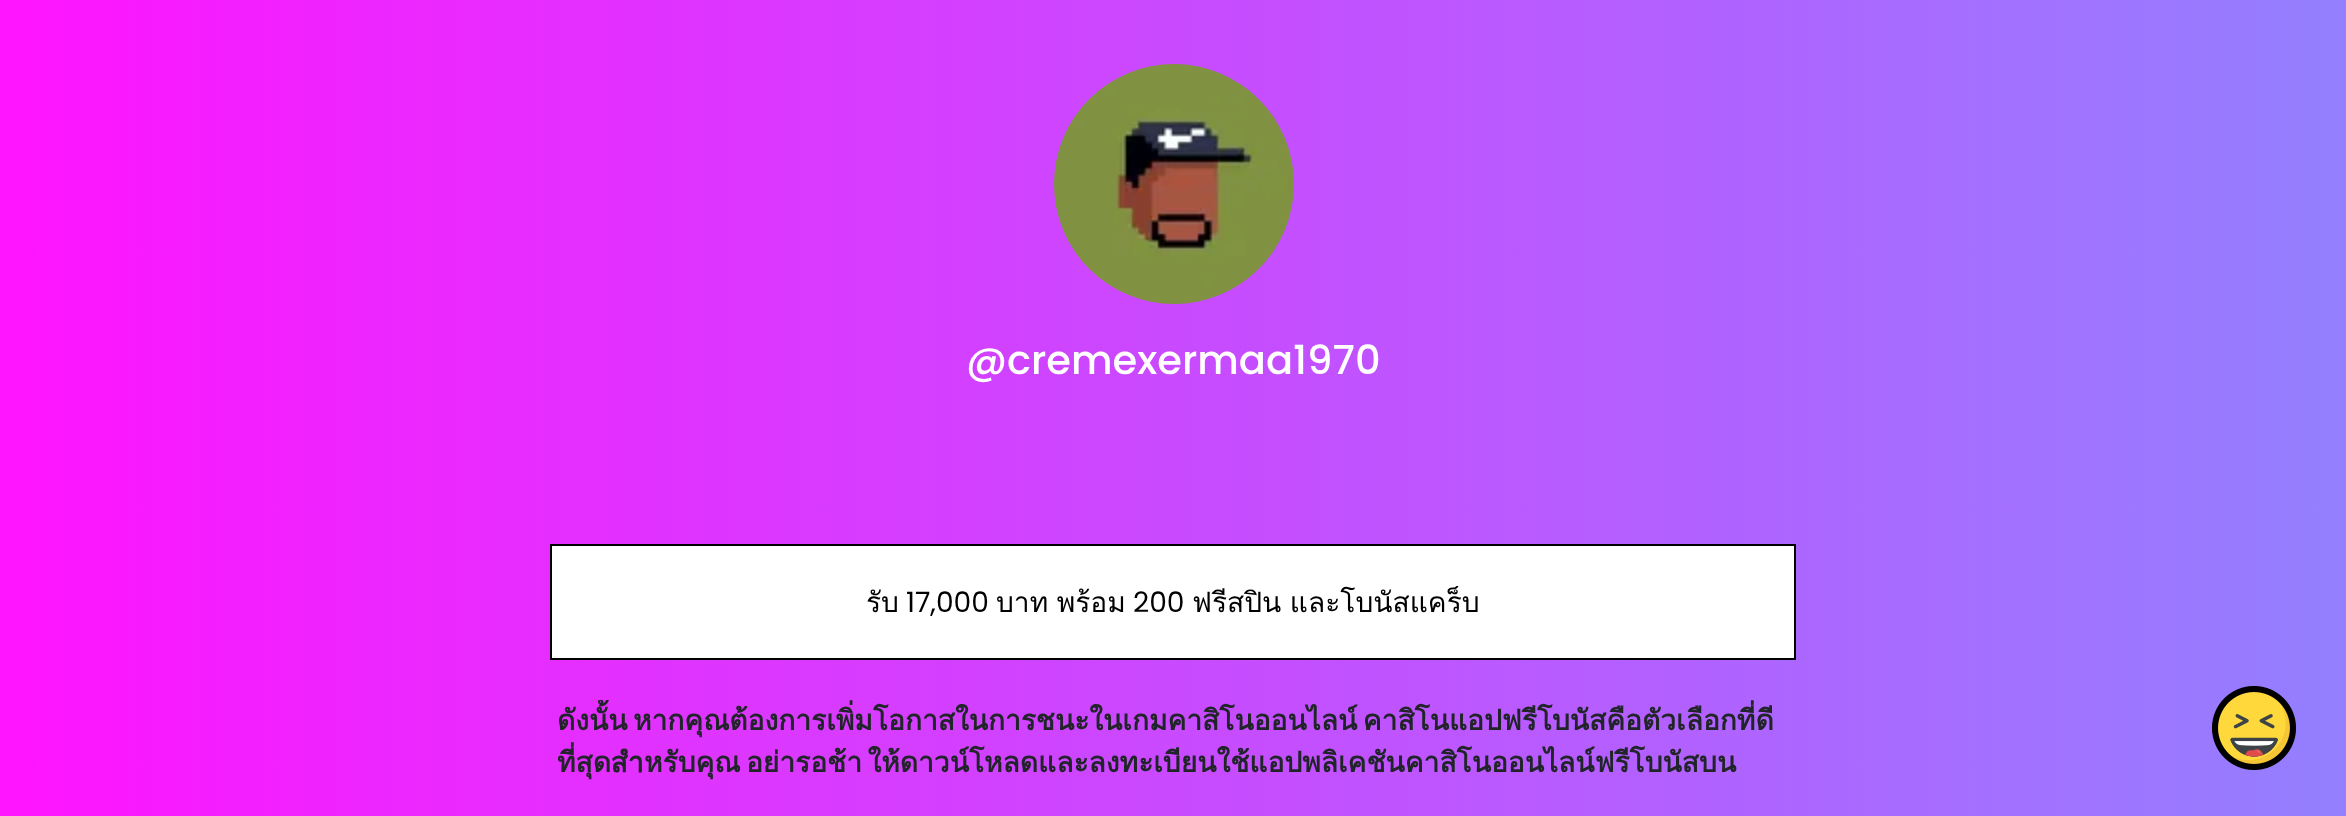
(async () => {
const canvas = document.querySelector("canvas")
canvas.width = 2346
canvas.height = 816
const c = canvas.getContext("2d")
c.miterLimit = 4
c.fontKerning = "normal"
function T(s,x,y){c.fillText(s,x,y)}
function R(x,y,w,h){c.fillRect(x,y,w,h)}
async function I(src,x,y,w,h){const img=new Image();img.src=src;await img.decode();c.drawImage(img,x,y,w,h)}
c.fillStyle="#fff"
R(0,0,2346,816)
await I("1.png",0,0,2346,816)
await I("2.png",1054,64,240,240)
c.font="500 40px Poppins"
T("@cremexermaa1970",966,374)
c.beginPath()
c.rect(551,545,1244,114)
c.fill()
c.strokeStyle="#000"
c.lineWidth=2
c.stroke()
c.font="28.15px Loma"
c.fillStyle="#000"
T("รับ",866,612)
c.font="28.15px Poppins"
T("17,000",906,612)
c.wordSpacing="-1px"
c.font="28.15px Loma"
T("บาท พร้อม",996,612)
c.wordSpacing="0px"
c.font="28.15px Poppins"
T("200",1133,612)
c.wordSpacing="-1px"
c.font="28.15px Loma"
T("ฟรีสปิน และโบนัสแคร็บ",1192,612)
c.save()
c.beginPath()
c.rect(558,700,1230,84)
c.clip()
c.wordSpacing="-4px"
c.font="bold 28.15px Loma"
c.fillStyle="#212529"
T("ดังนั้น หากคุณต้องการเพิ่มโอกาสในการชนะในเกมคาสิโนออนไลน์ คาสิโนแอปฟรีโบนัสคือตัวเลือกที่ดี",557,730)
T("ที่สุดสำหรับคุณ อย่ารอช้า ให้ดาวน์โหลดและลงทะเบียนใช้แอปพลิเคชันคาสิโนออนไลน์ฟรีโบนัสบน",557,772)
c.restore()
await I("3.png",2212,686,84,84)
})()
